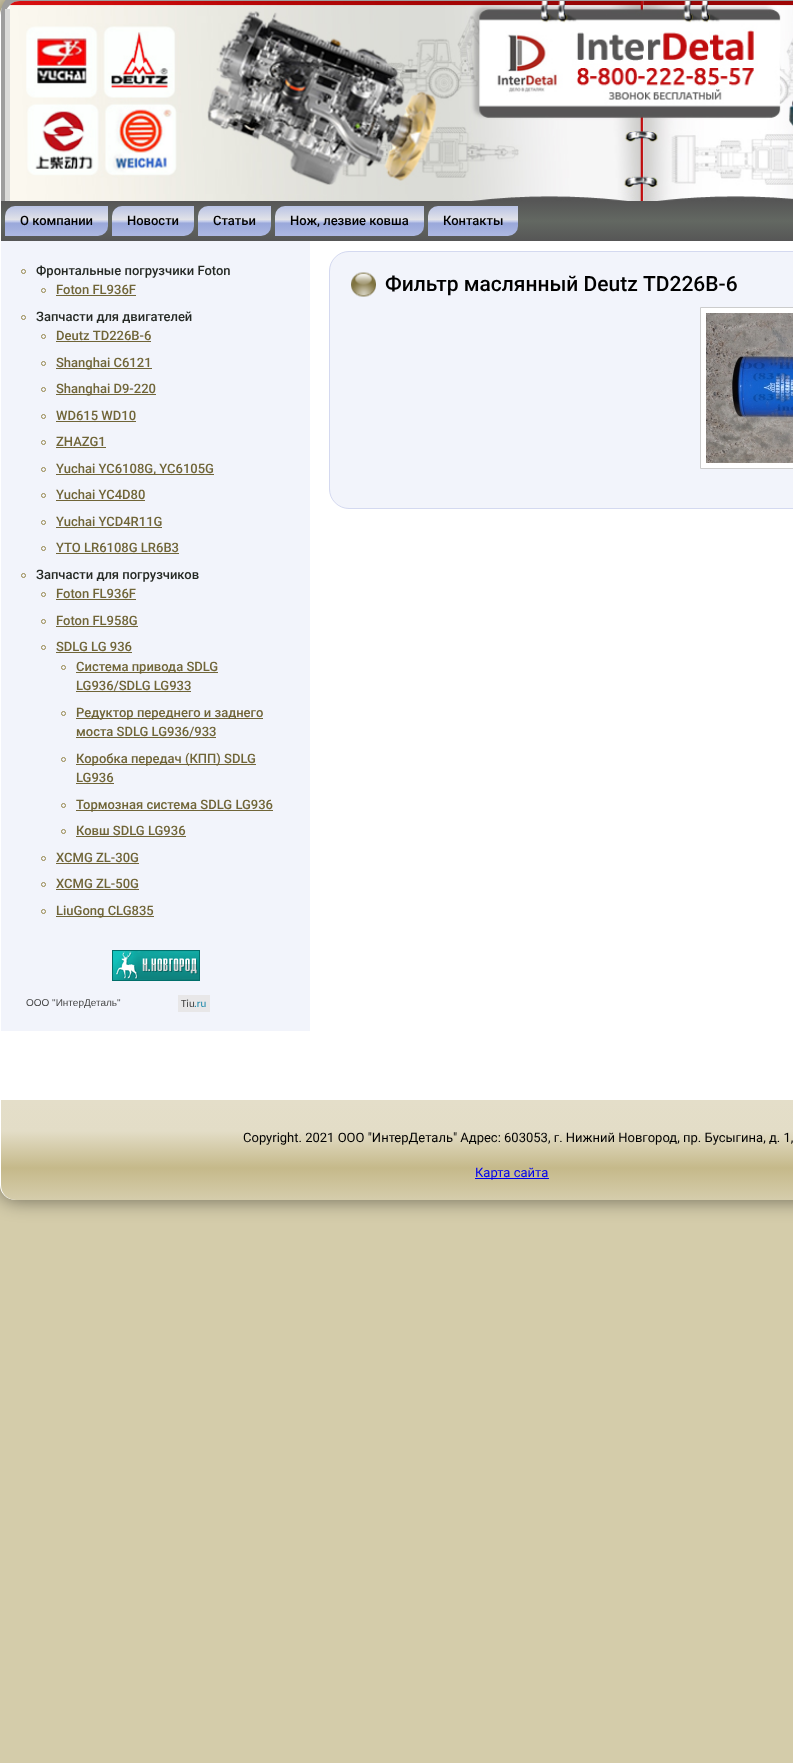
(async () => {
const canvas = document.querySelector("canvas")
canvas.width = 793
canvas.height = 1763
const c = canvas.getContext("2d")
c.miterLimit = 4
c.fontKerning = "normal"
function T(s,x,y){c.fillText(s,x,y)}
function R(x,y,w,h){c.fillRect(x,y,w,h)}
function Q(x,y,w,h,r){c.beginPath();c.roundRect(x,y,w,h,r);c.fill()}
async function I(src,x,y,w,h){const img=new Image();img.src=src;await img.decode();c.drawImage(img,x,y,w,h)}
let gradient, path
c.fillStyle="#d4ccaa"
R(0,0,793,1763)
c.fillStyle="#00000080"
c.filter="blur(10px)"
c.beginPath()
c.roundRect(0,0,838,1200,15)
c.fill()
c.filter="none"
c.fillStyle="#fff"
Q(0,0,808,1200,15)
c.fillStyle="#9e9e9e"
path = new Path2D("M20-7c-10 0-19 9-19 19v189h4v-185c0-8 7-15 15-15h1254c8 0 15 7 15 15v185h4v-189c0-10-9-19-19-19z")
c.fill(path)
await I("1.png",10,1,783,200)
c.fillStyle="#dadad8"
R(5,9,5,192)
gradient = c.createLinearGradient(647,201,647,241)
gradient.addColorStop(0,"#565656")
gradient.addColorStop(.5,"#636862")
gradient.addColorStop(1,"#565656")
c.fillStyle = gradient
R(1,201,792,40)
gradient = c.createLinearGradient(57,206,57,236)
gradient.addColorStop(0,"#b9c3e5")
gradient.addColorStop(.45,"#e1e2e8")
gradient.addColorStop(.52,"#c0c9e9")
gradient.addColorStop(.57,"#9ba9db")
gradient.addColorStop(.61,"#9ba9db")
gradient.addColorStop(1,"#aeb9e2")
c.fillStyle = gradient
c.beginPath()
c.roundRect(5,206,103,30,[10,0,10,0])
c.fill()
c.font="500 13px Roboto"
c.fillStyle="#000"
T("О компании",20,225)
gradient = c.createLinearGradient(153,206,153,236)
gradient.addColorStop(0,"#b9c3e5")
gradient.addColorStop(.45,"#e1e2e8")
gradient.addColorStop(.52,"#c0c9e9")
gradient.addColorStop(.57,"#9ba9db")
gradient.addColorStop(.61,"#9ba9db")
gradient.addColorStop(1,"#aeb9e2")
c.fillStyle = gradient
c.beginPath()
c.roundRect(112,206,82,30,[10,0,10,0])
c.fill()
c.fillStyle="#000"
T("Новости",127,225)
gradient = c.createLinearGradient(235,206,235,236)
gradient.addColorStop(0,"#b9c3e5")
gradient.addColorStop(.45,"#e1e2e8")
gradient.addColorStop(.52,"#c0c9e9")
gradient.addColorStop(.57,"#9ba9db")
gradient.addColorStop(.61,"#9ba9db")
gradient.addColorStop(1,"#aeb9e2")
c.fillStyle = gradient
c.beginPath()
c.roundRect(198,206,73,30,[10,0,10,0])
c.fill()
c.fillStyle="#000"
T("Статьи",213,225)
gradient = c.createLinearGradient(350,206,350,236)
gradient.addColorStop(0,"#b9c3e5")
gradient.addColorStop(.45,"#e1e2e8")
gradient.addColorStop(.52,"#c0c9e9")
gradient.addColorStop(.57,"#9ba9db")
gradient.addColorStop(.61,"#9ba9db")
gradient.addColorStop(1,"#aeb9e2")
c.fillStyle = gradient
c.beginPath()
c.roundRect(275,206,149,30,[10,0,10,0])
c.fill()
c.fillStyle="#000"
T("Нож, лезвие ковша",290,225)
gradient = c.createLinearGradient(473,206,473,236)
gradient.addColorStop(0,"#b9c3e5")
gradient.addColorStop(.45,"#e1e2e8")
gradient.addColorStop(.52,"#c0c9e9")
gradient.addColorStop(.57,"#9ba9db")
gradient.addColorStop(.61,"#9ba9db")
gradient.addColorStop(1,"#aeb9e2")
c.fillStyle = gradient
c.beginPath()
c.roundRect(428,206,90,30,[10,0,10,0])
c.fill()
c.fillStyle="#000"
T("Контакты",443,225)
c.fillStyle="#f2f4fb"
R(1,241,309,790)
c.beginPath()
c.arc(23.5,271.5,2,0,7)
c.strokeStyle="#95864b"
c.stroke()
c.fillStyle="#252924"
T("Фронтальные погрузчики Foton",36,275)
c.beginPath()
c.arc(43.5,290.5,2,0,7)
c.stroke()
c.fillStyle="#706538"
T("Foton FL936F",56,294)
R(56,295,80,1)
c.beginPath()
c.arc(23.5,317.5,2,0,7)
c.stroke()
c.fillStyle="#252924"
T("Запчасти для двигателей",36,321)
c.beginPath()
c.arc(43.5,336.5,2,0,7)
c.stroke()
c.fillStyle="#706538"
T("Deutz TD226B-6",56,340)
R(56,341,95,1)
c.beginPath()
c.arc(43.5,363.5,2,0,7)
c.stroke()
R(56,368,96,1)
T("Shanghai C6121",56,367)
c.beginPath()
c.arc(43.5,389.5,2,0,7)
c.stroke()
R(56,394,100,1)
T("Shanghai D9-220",56,393)
c.beginPath()
c.arc(43.5,416.5,2,0,7)
c.stroke()
T("WD615 WD10",56,420)
R(56,421,80,1)
c.beginPath()
c.arc(43.5,442.5,2,0,7)
c.stroke()
T("ZHAZG1",56,446)
R(56,447,50,1)
c.beginPath()
c.arc(43.5,469.5,2,0,7)
c.stroke()
R(56,474,158,1)
T("Yuchai YC6108G, YC6105G",56,473)
c.beginPath()
c.arc(43.5,495.5,2,0,7)
c.stroke()
T("Yuchai YC4D80",56,499)
R(56,500,89,1)
c.beginPath()
c.arc(43.5,522.5,2,0,7)
c.stroke()
T("Yuchai YCD4R11G",56,526)
R(56,527,106,1)
c.beginPath()
c.arc(43.5,548.5,2,0,7)
c.stroke()
T("YTO LR6108G LR6B3",56,552)
R(56,553,123,1)
c.beginPath()
c.arc(23.5,575.5,2,0,7)
c.stroke()
c.fillStyle="#252924"
T("Запчасти для погрузчиков",36,579)
c.beginPath()
c.arc(43.5,594.5,2,0,7)
c.stroke()
c.fillStyle="#706538"
T("Foton FL936F",56,598)
R(56,599,80,1)
c.beginPath()
c.arc(43.5,621.5,2,0,7)
c.stroke()
T("Foton FL958G",56,625)
R(56,626,82,1)
c.beginPath()
c.arc(43.5,647.5,2,0,7)
c.stroke()
T("SDLG LG 936",56,651)
R(56,652,76,1)
c.beginPath()
c.arc(63.5,667.5,2,0,7)
c.stroke()
R(76,672,142,1)
T("Система привода SDLG",76,671)
T("LG936/SDLG LG933",76,690)
R(76,691,115,1)
c.beginPath()
c.arc(63.5,713.5,2,0,7)
c.stroke()
R(76,718,187,1)
T("Редуктор переднего и заднего",76,717)
T("моста SDLG LG936/933",76,736)
R(76,737,140,1)
c.beginPath()
c.arc(63.5,759.5,2,0,7)
c.stroke()
R(76,764,180,1)
T("Коробка передач (КПП) SDLG",76,763)
T("LG936",76,782)
R(76,783,38,1)
c.beginPath()
c.arc(63.5,805.5,2,0,7)
c.stroke()
R(76,810,197,1)
T("Тормозная система SDLG LG936",76,809)
c.beginPath()
c.arc(63.5,831.5,2,0,7)
c.stroke()
T("Ковш SDLG LG936",76,835)
R(76,836,110,1)
c.beginPath()
c.arc(43.5,858.5,2,0,7)
c.stroke()
T("XCMG ZL-30G",56,862)
R(56,863,83,1)
c.beginPath()
c.arc(43.5,884.5,2,0,7)
c.stroke()
T("XCMG ZL-50G",56,888)
R(56,889,83,1)
c.beginPath()
c.arc(43.5,911.5,2,0,7)
c.stroke()
R(56,916,98,1)
T("LiuGong CLG835",56,915)
await I("2.png",112,950,88,31)
c.font="10px Liberation Sans"
c.fillStyle="#464646"
T("ООО \"ИнтерДеталь\"",26,1006)
c.fillStyle="#e8e7e8"
R(178,995,32,17)
c.font="11px Carlito"
c.fillStyle="#464646"
T("Tiu",181,1007)
c.fillStyle="#1e8aab"
T(".ru",194,1007)
c.fillStyle="#f2f4fb"
c.beginPath()
c.roundRect(329.5,251.5,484,257,19.5)
c.fill()
c.strokeStyle="#d4d9f0"
c.stroke()
await I("3.png",351,272,25,25)
c.font="500 21px Roboto"
c.fillStyle="#000"
T("Фильтр маслянный Deutz TD226B-6",385,291)
c.fillStyle="#fff"
c.beginPath()
c.rect(700.5,307.5,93,161)
c.fill()
c.strokeStyle="#ccc"
c.stroke()
await I("4.png",706,313,87,150)
gradient = c.createLinearGradient(647,1100,647,1200)
gradient.addColorStop(0,"#e4dec9")
gradient.addColorStop(.31,"#e3ddc7")
gradient.addColorStop(.68,"#c5b98a")
gradient.addColorStop(1,"#d5cdac")
c.fillStyle = gradient
path = new Path2D("M1 1100h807v85c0 8.5-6.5 15-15 15h-777c-8.5 0-15-6.5-15-15z")
c.fill(path)
c.font="13px Roboto"
c.fillStyle="#000"
T("Copyright. 2021 ООО \"ИнтерДеталь\" Адрес: 603053, г. Нижний Новгород, пр. Бусыгина, д. 1,",243,1142)
c.fillStyle="#00e"
R(475,1178,74,1)
T("Карта сайта",475,1177)
})()
